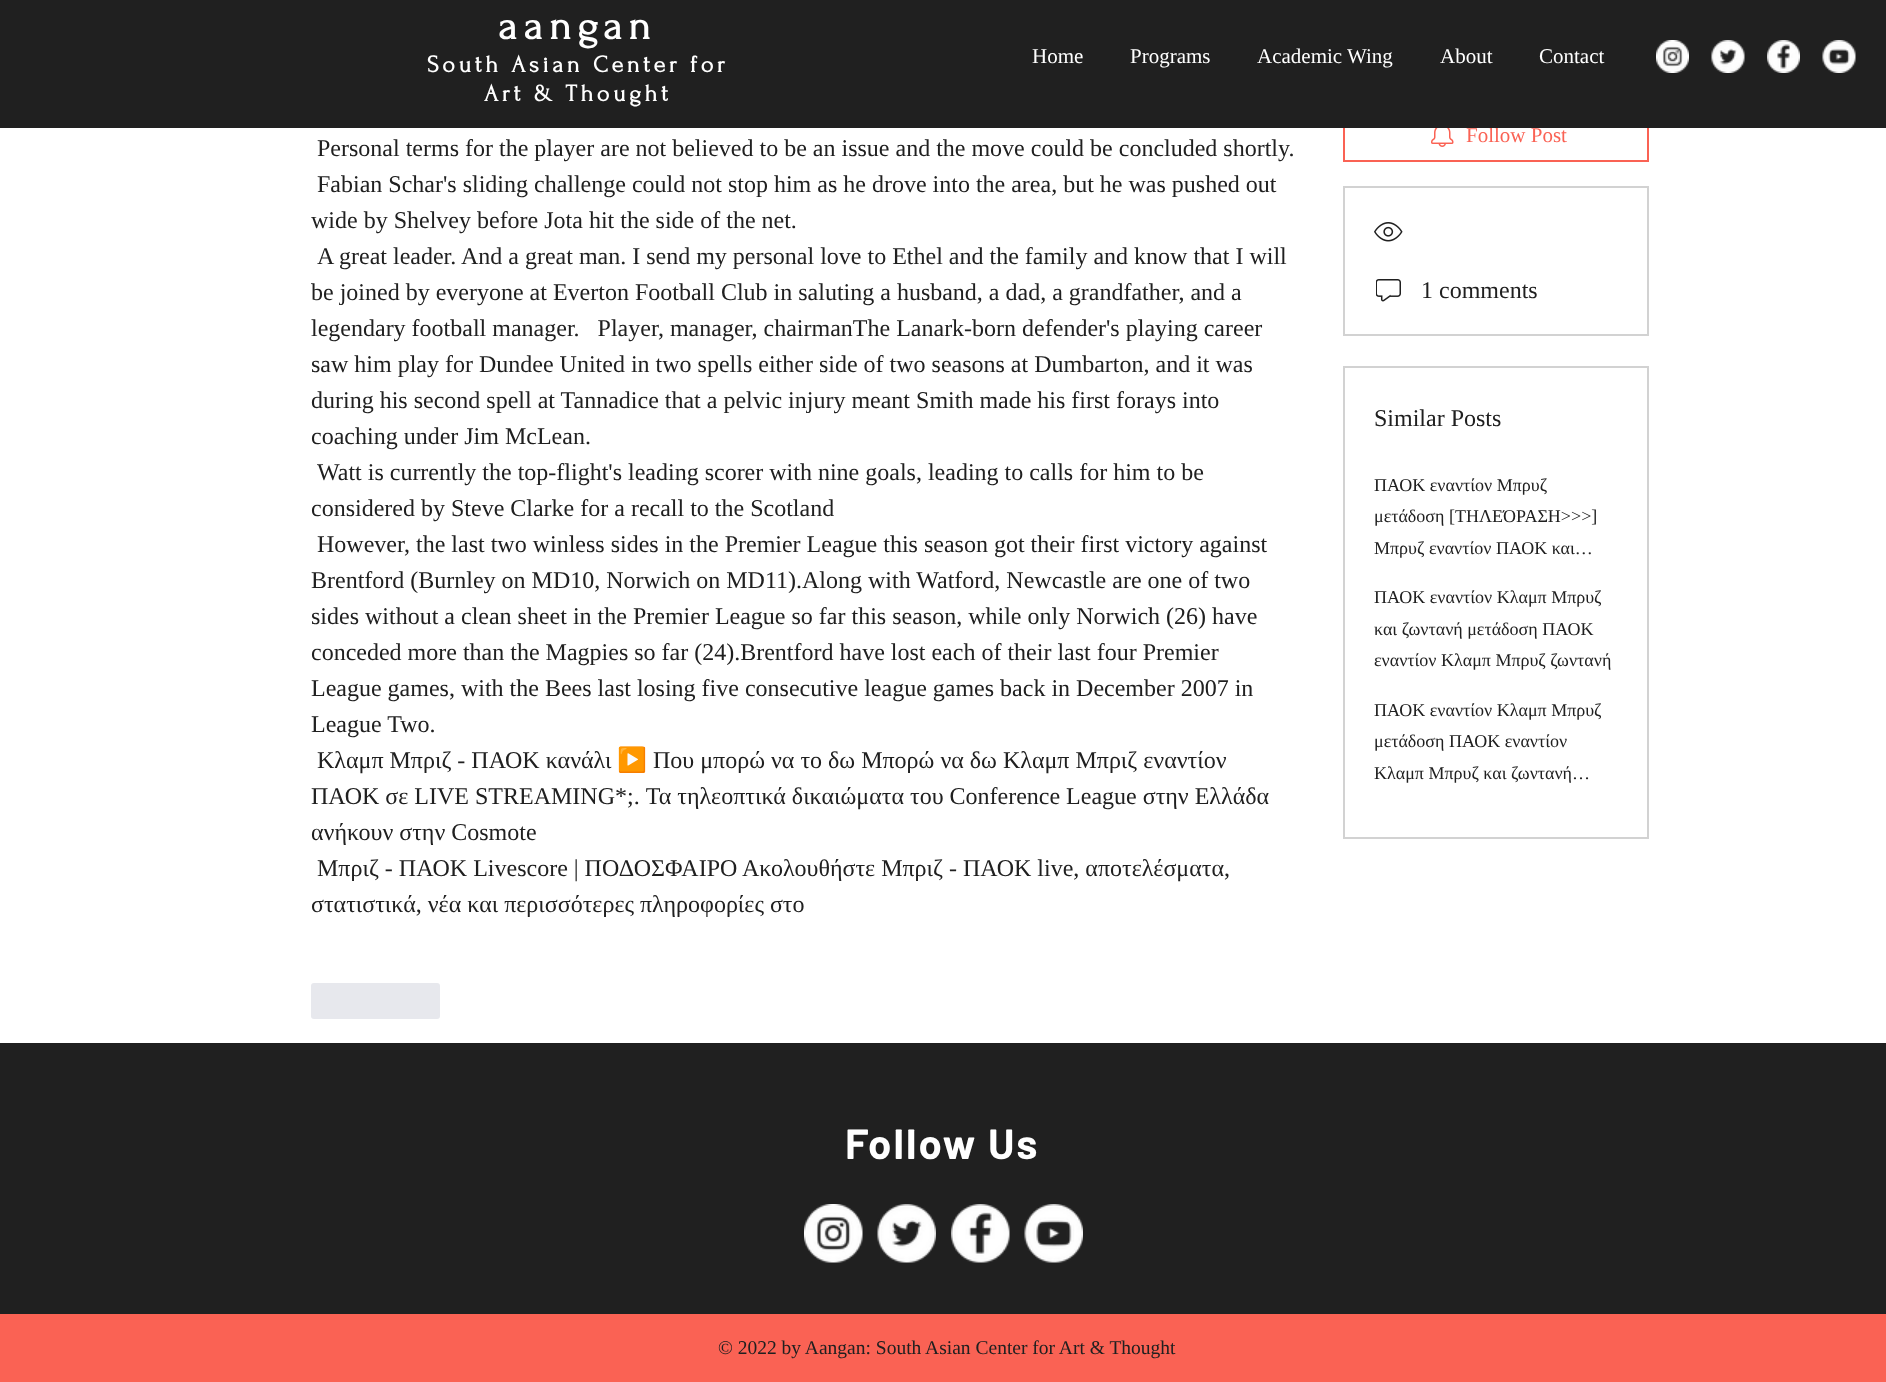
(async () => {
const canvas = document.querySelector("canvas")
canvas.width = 1886
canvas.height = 1382
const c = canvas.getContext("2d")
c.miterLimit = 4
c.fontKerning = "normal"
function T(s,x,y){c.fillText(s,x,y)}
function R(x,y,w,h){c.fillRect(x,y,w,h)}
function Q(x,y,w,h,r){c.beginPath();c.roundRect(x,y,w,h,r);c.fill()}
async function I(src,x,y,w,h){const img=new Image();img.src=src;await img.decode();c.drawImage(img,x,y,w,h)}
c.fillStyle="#fff"
R(0,0,1886,1382)
c.strokeStyle="#fa6254"
c.lineWidth=2
c.strokeRect(1344,109,304,52)
c.font="21px Liberation Serif"
c.fillStyle="#fa6254"
T("Follow Post",1466,142)
c.fillStyle="#202020"
R(0,0,1886,128)
c.letterSpacing="6.25px"
c.font="bold 42px Forum"
c.fillStyle="#fff"
T("aangan",498,39)
c.letterSpacing="3.6px"
c.font="bold 24px Forum"
T("South Asian Center for",427,72)
T("Art & Thought",484,101)
c.letterSpacing="0px"
c.font="21px Liberation Serif"
T("Home",1032,63)
T("Programs",1130,63)
T("Academic Wing",1257,63)
T("About",1440,63)
T("Contact",1539,63)
await I("1.png",1656,40,33,33)
await I("2.png",1711,40,34,33)
await I("3.png",1767,40,33,33)
await I("4.png",1822,40,34,33)
c.font="24px Liberation Serif"
c.fillStyle="#202020"
T("Personal terms for the player are not believed to be an issue and the move could be concluded shortly.",317,156)
T("Fabian Schar's sliding challenge could not stop him as he drove into the area, but he was pushed out",317,192)
T("wide by Shelvey before Jota hit the side of the net.",311,228)
T("A great leader. And a great man. I send my personal love to Ethel and the family and know that I will",317,264)
T("be joined by everyone at Everton Football Club in saluting a husband, a dad, a grandfather, and a",311,300)
T("legendary football manager.   Player, manager, chairmanThe Lanark-born defender's playing career",311,336)
T("saw him play for Dundee United in two spells either side of two seasons at Dumbarton, and it was",311,372)
T("during his second spell at Tannadice that a pelvic injury meant Smith made his first forays into",311,408)
T("coaching under Jim McLean.",311,444)
T("Watt is currently the top-flight's leading scorer with nine goals, leading to calls for him to be",317,480)
T("considered by Steve Clarke for a recall to the Scotland",311,516)
T("However, the last two winless sides in the Premier League this season got their first victory against",317,552)
T("Brentford (Burnley on MD10, Norwich on MD11).Along with Watford, Newcastle are one of two",311,588)
T("sides without a clean sheet in the Premier League so far this season, while only Norwich (26) have",311,624)
T("conceded more than the Magpies so far (24).Brentford have lost each of their last four Premier",311,660)
T("League games, with the Bees last losing five consecutive league games back in December 2007 in",311,696)
T("League Two.",311,732)
T("Κλαμπ Μπριζ - ΠΑΟΚ κανάλι",317,768)
c.font="24px Noto Color Emoji"
T("▶️",617,768)
c.font="24px Liberation Serif"
T("Που μπορώ να το δω Mπορώ να δω Κλαμπ Μπριζ εναντίον",653,768)
T("ΠΑΟΚ σε LIVE STREAMING*;. Τα τηλεοπτικά δικαιώματα του Conference League στην Ελλάδα",311,804)
T("ανήκουν στην Cosmote",311,840)
T("Μπριζ - ΠΑΟΚ Livescore | ΠΟΔΟΣΦΑΙΡΟ Ακολουθήστε Μπριζ - ΠΑΟΚ live, αποτελέσματα,",317,876)
T("στατιστικά, νέα και περισσότερες πληροφορίες στο",311,912)
c.fillStyle="#e7e8ed"
Q(311,983,129,36,3)
await I("5.png",1431,128,23,19)
c.strokeStyle="#d2d2d2"
c.strokeRect(1344,187,304,148)
await I("6.png",1374,222,29,20)
await I("7.png",1376,279,25,23)
c.fillStyle="#202020"
T("1 comments",1421,298)
c.strokeRect(1344,367,304,471)
T("Similar Posts",1374,426)
c.font="18px Liberation Serif"
T("ΠΑΟΚ εναντίον Μπρυζ",1374,491)
T("μετάδοση [ΤΗΛΕΌΡΑΣΗ>>>]",1374,522)
T("Μπρυζ εναντίον ΠΑΟΚ και…",1374,554)
T("ΠΑΟΚ εναντίον Κλαμπ Μπρυζ",1374,603)
T("και ζωντανή μετάδοση ΠΑΟΚ",1374,635)
T("εναντίον Κλαμπ Μπρυζ ζωντανή",1374,666)
T("ΠΑΟΚ εναντίον Κλαμπ Μπρυζ",1374,716)
T("μετάδοση ΠΑΟΚ εναντίον",1374,747)
T("Κλαμπ Μπρυζ και ζωντανή…",1374,779)
R(0,1043,1886,271)
c.letterSpacing="2px"
c.font="bold 42px Barlow"
c.fillStyle="#fff"
T("Follow Us",845,1159)
await I("8.png",804,1204,59,59)
await I("9.png",877,1204,59,59)
await I("10.png",951,1204,59,59)
await I("11.png",1024,1204,59,59)
c.fillStyle="#fa6254"
R(0,1314,1886,68)
c.letterSpacing="0px"
c.font="19.5px Liberation Serif"
c.fillStyle="#202020"
T("© 2022 by Aangan: South Asian Center for Art & Thought",718,1354)
})()
